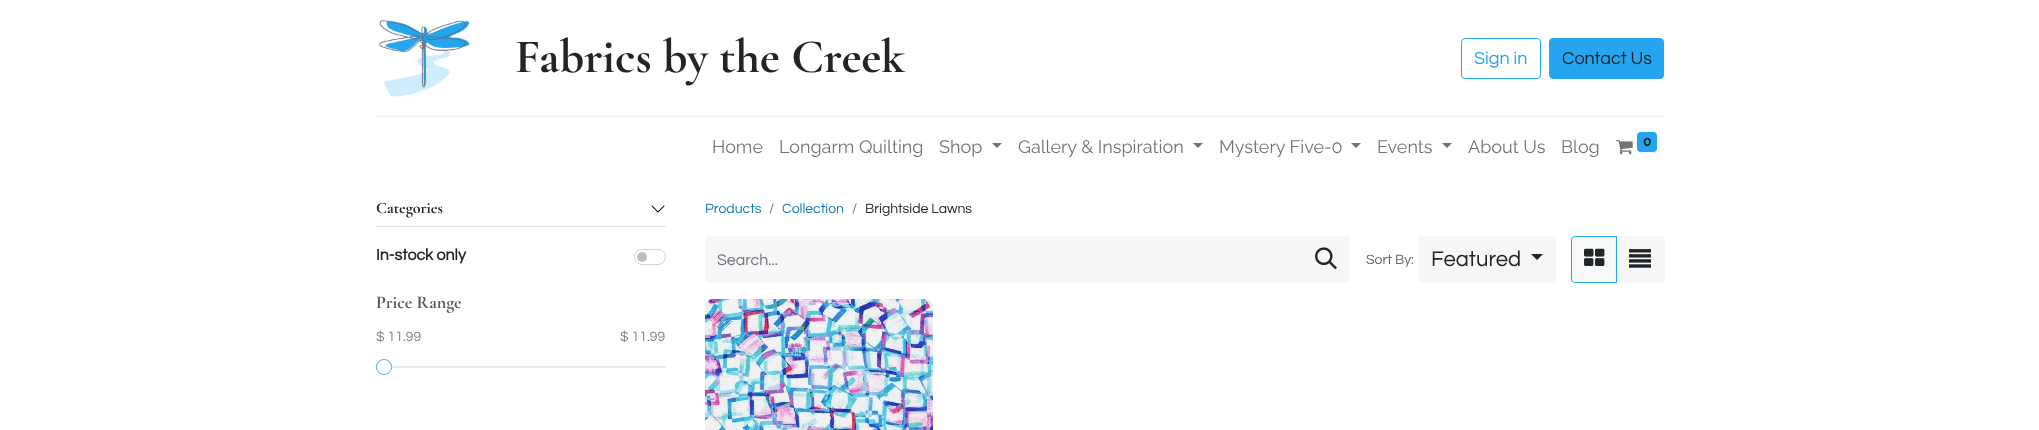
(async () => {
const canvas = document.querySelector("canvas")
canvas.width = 2039
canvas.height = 430
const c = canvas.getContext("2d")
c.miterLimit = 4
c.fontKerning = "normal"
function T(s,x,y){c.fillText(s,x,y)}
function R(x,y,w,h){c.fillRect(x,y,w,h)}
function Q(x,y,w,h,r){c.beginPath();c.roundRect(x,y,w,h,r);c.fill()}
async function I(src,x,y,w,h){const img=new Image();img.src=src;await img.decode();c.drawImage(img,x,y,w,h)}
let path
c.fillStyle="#fff"
R(0,0,2039,430)
await I("1.png",379,20,91,77)
c.font="bold 48px Cormorant Garamond"
c.fillStyle="#212529"
T("Fabrics by the Creek",515,72)
c.beginPath()
c.roundRect(1461.5,38.5,79,40,3.5)
c.strokeStyle="#25a5ef"
c.stroke()
c.font="18px Questrial"
c.fillStyle="#25a5ef"
T("Sign in",1474,64)
c.beginPath()
c.roundRect(1549.5,38.5,114,40,3.5)
c.fill()
c.stroke()
c.fillStyle="#212529"
T("Contact Us",1562,64)
c.fillStyle="#e9ecef"
R(375,116,1290,1)
c.font="18px Raleway"
c.fillStyle="#737373"
T("Home",712,153)
T("Longarm Quilting",779,153)
T("Shop",939,153)
path = new Path2D("M992 143h10l-5 5z")
c.fill(path)
T("Gallery & Inspiration",1018,153)
path = new Path2D("M1193 143h10l-5 5z")
c.fill(path)
T("Mystery Five-0",1219,153)
path = new Path2D("M1351 143h10l-5 5z")
c.fill(path)
T("Events",1377,153)
path = new Path2D("M1442 143h10l-5 5z")
c.fill(path)
T("About Us",1468,153)
T("Blog",1561,153)
await I("2.png",1616,140,17,15)
c.fillStyle="#25a5ef"
Q(1637,132,20,20,4)
c.font="bold 14px Raleway"
c.fillStyle="#212529"
T("0",1643,146)
c.fillStyle="#dee2e6"
R(376,226,290,1)
c.font="bold 16px Cormorant Garamond"
c.fillStyle="#212529"
T("Categories",376,213)
await I("3.png",651,205,14,8)
c.font="bold 16px Questrial"
T("In-stock only",376,260)
c.fillStyle="#bfbfbf"
c.beginPath()
c.arc(642,257,5,0,7)
c.fill()
c.beginPath()
c.roundRect(634.5,249.5,31,15,7.5)
c.strokeStyle="#ced4da"
c.stroke()
c.font="bold 18px Cormorant Garamond"
c.fillStyle="#595c5f"
T("Price Range",376,308)
c.font="14px Questrial"
c.fillStyle="#828487"
T("$ 11.99",376,341)
T("$ 11.99",620,341)
c.fillStyle="#e6e9ec"
Q(376,366,290,2,1)
c.beginPath()
c.arc(384,367,7.5,0,7)
c.strokeStyle="#5cbcf3"
c.stroke()
c.fillStyle="#fff"
c.beginPath()
c.arc(384,367,7.5,0,7)
c.fill()
c.stroke()
c.fillStyle="#0e7bba"
T("Products",705,213)
c.fillStyle="#6c757d"
T("/",769,213)
c.fillStyle="#0e7bba"
T("Collection",782,213)
c.fillStyle="#6c757d"
T("/",852,213)
c.fillStyle="#212529"
T("Brightside Lawns",865,213)
c.fillStyle="#f7f7f8"
c.beginPath()
c.roundRect(705,236,598,47,[4,0,0,4])
c.fill()
c.font="16px Questrial"
c.fillStyle="#6c757d"
T("Search...",717,265)
c.fillStyle="#f7f7f8"
c.beginPath()
c.roundRect(1302,236,48,47,[0,4,4,0])
c.fill()
await I("4.png",1315,247,22,23)
c.font="14px Questrial"
c.fillStyle="#646669"
T("Sort By:",1366,264)
c.fillStyle="#f7f7f8"
Q(1418,236,138,47,4)
c.font="22px Questrial"
c.fillStyle="#212529"
T("Featured",1431,266)
path = new Path2D("M1531 254h12l-6 6z")
c.fill(path)
c.fillStyle="#f7f7f8"
c.beginPath()
c.roundRect(1616,236,49,47,[0,4,4,0])
c.fill()
c.fillStyle="#f8f9f9"
c.beginPath()
c.roundRect(1571.5,236.5,45,46,[3.5,0,0,3.5])
c.fill()
c.strokeStyle="#25a5ef"
c.stroke()
await I("5.png",1584,248,21,18)
await I("6.png",1629,249,22,19)
await I("7.png",705,299,228,131)
})()
